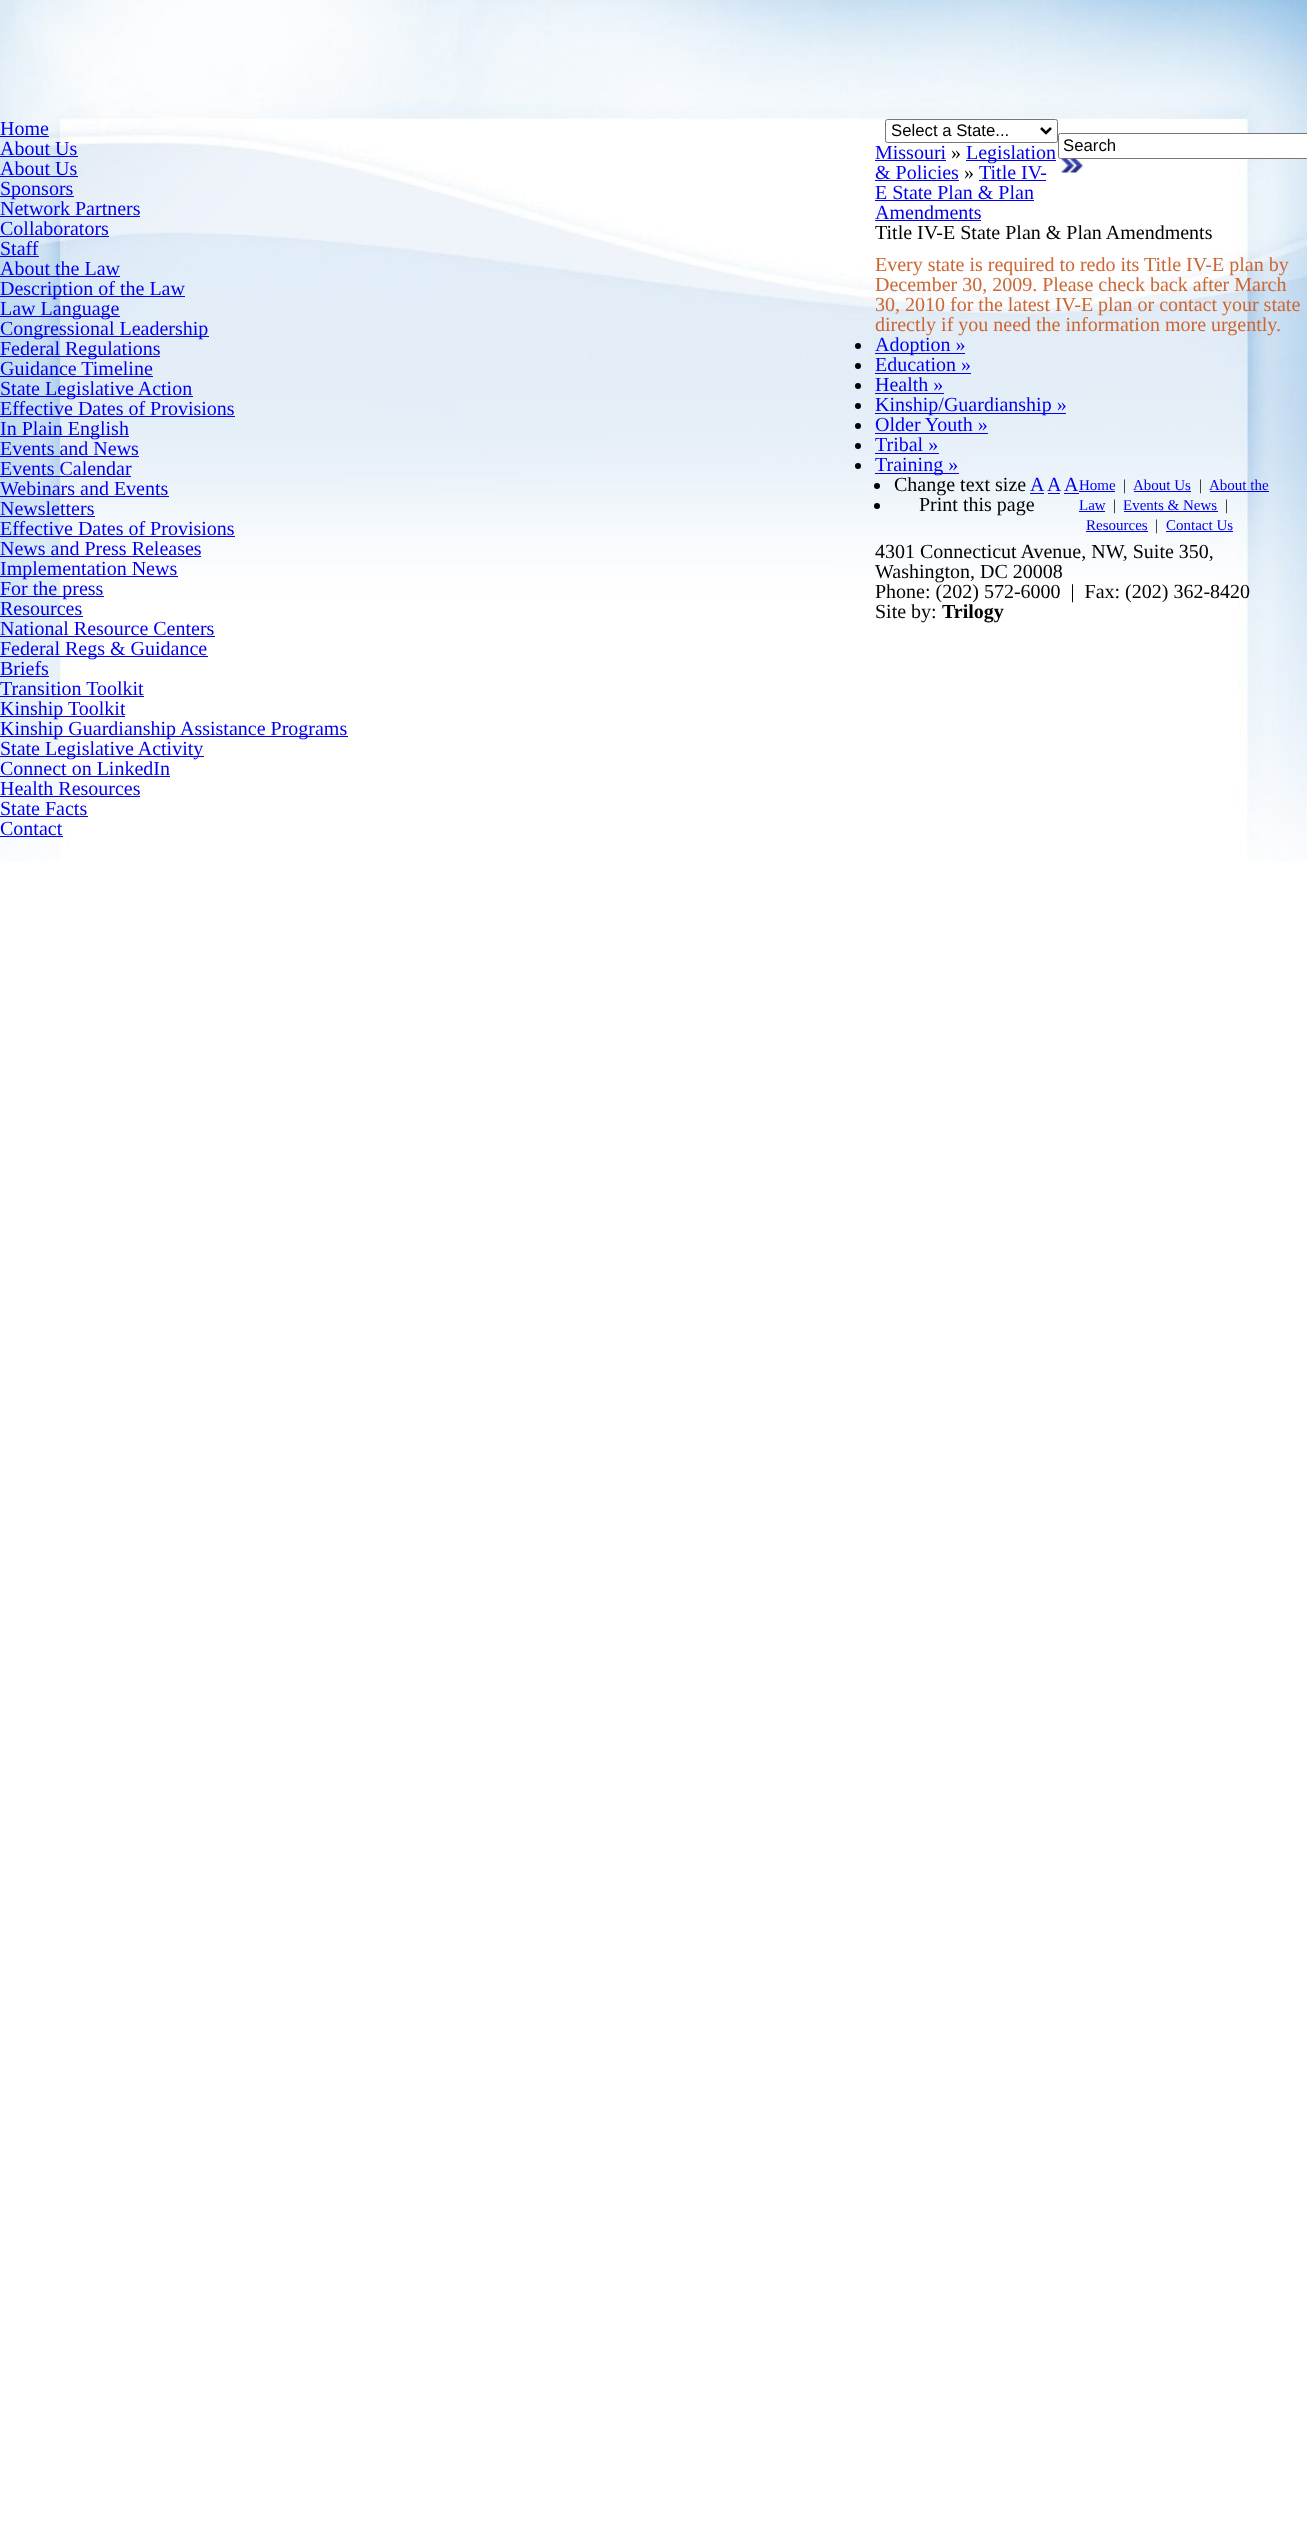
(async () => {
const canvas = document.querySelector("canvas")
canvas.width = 1307
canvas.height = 2534
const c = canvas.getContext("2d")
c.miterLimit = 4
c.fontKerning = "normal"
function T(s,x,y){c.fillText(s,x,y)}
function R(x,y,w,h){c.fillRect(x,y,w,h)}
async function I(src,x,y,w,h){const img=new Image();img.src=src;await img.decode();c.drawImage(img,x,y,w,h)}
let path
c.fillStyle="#fff"
R(0,0,1307,2534)
await I("1.png",0,0,1307,861)
c.font="20px Liberation Serif"
c.fillStyle="#00e"
T("Home",0,135)
R(0,136,49,1)
T("About Us",0,155)
R(0,156,78,1)
T("About Us",0,175)
R(0,176,78,1)
R(0,196,74,1)
T("Sponsors",0,195)
T("Network Partners",0,215)
R(0,216,140,1)
T("Collaborators",0,235)
R(0,236,109,1)
T("Staff",0,255)
R(0,256,39,1)
T("About the Law",0,275)
R(0,276,120,1)
R(0,296,185,1)
T("Description of the Law",0,295)
R(0,316,120,1)
T("Law Language",0,315)
R(0,336,209,1)
T("Congressional Leadership",0,335)
R(0,356,160,1)
T("Federal Regulations",0,355)
T("Guidance Timeline",0,375)
R(0,376,153,1)
R(0,396,193,1)
T("State Legislative Action",0,395)
T("Effective Dates of Provisions",0,415)
R(0,416,235,1)
R(0,436,129,1)
T("In Plain English",0,435)
T("Events and News",0,455)
R(0,456,139,1)
T("Events Calendar",0,475)
R(0,476,131,1)
T("Webinars and Events",0,495)
R(0,496,169,1)
T("Newsletters",0,515)
R(0,516,95,1)
T("Effective Dates of Provisions",0,535)
R(0,536,235,1)
T("News and Press Releases",0,555)
R(0,556,201,1)
R(0,576,178,1)
T("Implementation News",0,575)
R(0,596,104,1)
T("For the press",0,595)
T("Resources",0,615)
R(0,616,83,1)
T("National Resource Centers",0,635)
R(0,636,215,1)
R(0,656,208,1)
T("Federal Regs & Guidance",0,655)
T("Briefs",0,675)
R(0,676,49,1)
T("Transition Toolkit",0,695)
R(0,696,144,1)
R(0,716,125,1)
T("Kinship Toolkit",0,715)
R(0,736,348,1)
T("Kinship Guardianship Assistance Programs",0,735)
R(0,756,204,1)
T("State Legislative Activity",0,755)
T("Connect on LinkedIn",0,775)
R(0,776,170,1)
T("Health Resources",0,795)
R(0,796,140,1)
T("State Facts",0,815)
R(0,816,88,1)
T("Contact",0,835)
R(0,836,63,1)
c.fillStyle="#fff"
c.beginPath()
c.roundRect(1058.5,133.5,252,25,2)
c.fill()
c.strokeStyle="#767676"
c.stroke()
c.font="16.75px Liberation Sans"
c.fillStyle="#000"
T("Search",1063,151)
await I("2.png",1061,158,22,15)
c.fillStyle="#fff"
c.beginPath()
c.roundRect(885.5,119.5,172,23,2)
c.fill()
c.stroke()
path = new Path2D("M1041 128l5 5l5-5")
c.strokeStyle="#000"
c.lineWidth=2.5
c.stroke(path)
c.fillStyle="#000"
T("Select a State...",891,136)
c.font="20px Liberation Serif"
c.fillStyle="#00e"
T("Missouri",875,159)
R(875,160,71,1)
c.fillStyle="#000"
T("»",951,159)
c.fillStyle="#00e"
R(966,160,90,1)
T("Legislation",966,159)
T("& Policies",875,179)
R(875,180,84,1)
c.fillStyle="#000"
T("»",964,179)
c.fillStyle="#00e"
T("Title IV-",979,179)
R(979,180,67,1)
T("E State Plan & Plan",875,199)
R(875,200,159,1)
T("Amendments",875,219)
R(875,220,106,1)
c.fillStyle="#000"
T("Title IV-E State Plan & Plan Amendments",875,239)
c.fillStyle="#c63"
T("Every state is required to redo its Title IV-E plan by",875,271)
T("December 30, 2009. Please check back after March",875,291)
T("30, 2010 for the latest IV-E plan or contact your state",875,311)
T("directly if you need the information more urgently.",875,331)
c.fillStyle="#000"
c.beginPath()
c.arc(858,346,3,0,7)
c.fill()
c.fillStyle="#00e"
R(875,353,90,1)
T("Adoption »",875,351)
c.fillStyle="#000"
c.beginPath()
c.arc(858,366,3,0,7)
c.fill()
c.fillStyle="#00e"
T("Education »",875,371)
R(875,373,96,1)
c.fillStyle="#000"
c.beginPath()
c.arc(858,386,3,0,7)
c.fill()
c.fillStyle="#00e"
T("Health »",875,391)
R(875,393,69,1)
c.fillStyle="#000"
c.beginPath()
c.arc(858,406,3,0,7)
c.fill()
c.fillStyle="#00e"
R(875,413,191,1)
T("Kinship/Guardianship »",875,411)
c.fillStyle="#000"
c.beginPath()
c.arc(858,426,3,0,7)
c.fill()
c.fillStyle="#00e"
T("Older Youth »",875,431)
R(875,433,113,1)
c.fillStyle="#000"
c.beginPath()
c.arc(858,446,3,0,7)
c.fill()
c.fillStyle="#00e"
T("Tribal »",875,451)
R(875,453,64,1)
c.fillStyle="#000"
c.beginPath()
c.arc(858,466,3,0,7)
c.fill()
c.fillStyle="#00e"
R(875,473,84,1)
T("Training »",875,471)
c.fillStyle="#000"
c.beginPath()
c.arc(877,486,3,0,7)
c.fill()
T("Change text size",894,491)
c.fillStyle="#00e"
T("A",1030,491)
R(1030,493,14,1)
T("A",1047,491)
R(1048,493,12,1)
T("A",1064,491)
R(1064,493,15,1)
c.fillStyle="#000"
c.beginPath()
c.arc(877,506,3,0,7)
c.fill()
T("Print this page",919,511)
c.font="15px Liberation Serif"
c.fillStyle="#00e"
T("Home",1079,490)
R(1079,491,36,1)
c.fillStyle="#000"
T("|",1123,490)
c.fillStyle="#00e"
T("About Us",1133,490)
R(1134,491,57,1)
c.fillStyle="#000"
T("|",1199,490)
c.fillStyle="#00e"
T("About the",1209,490)
R(1210,491,59,1)
T("Law",1079,510)
R(1079,511,26,1)
c.fillStyle="#000"
T("|",1113,510)
c.fillStyle="#00e"
T("Events & News",1123,510)
R(1124,511,94,1)
c.fillStyle="#000"
T("|",1225,510)
c.fillStyle="#00e"
T("Resources",1086,530)
R(1086,531,62,1)
c.fillStyle="#000"
T("|",1155,530)
c.fillStyle="#00e"
T("Contact Us",1166,530)
R(1166,531,67,1)
c.font="20px Liberation Serif"
c.fillStyle="#000"
T("4301 Connecticut Avenue, NW, Suite 350,",875,558)
T("Washington, DC 20008",875,578)
T("Phone: (202) 572-6000  |  Fax: (202) 362-8420",875,598)
T("Site by:",875,618)
c.font="bold 20px Liberation Serif"
T("Trilogy",942,618)
})()
